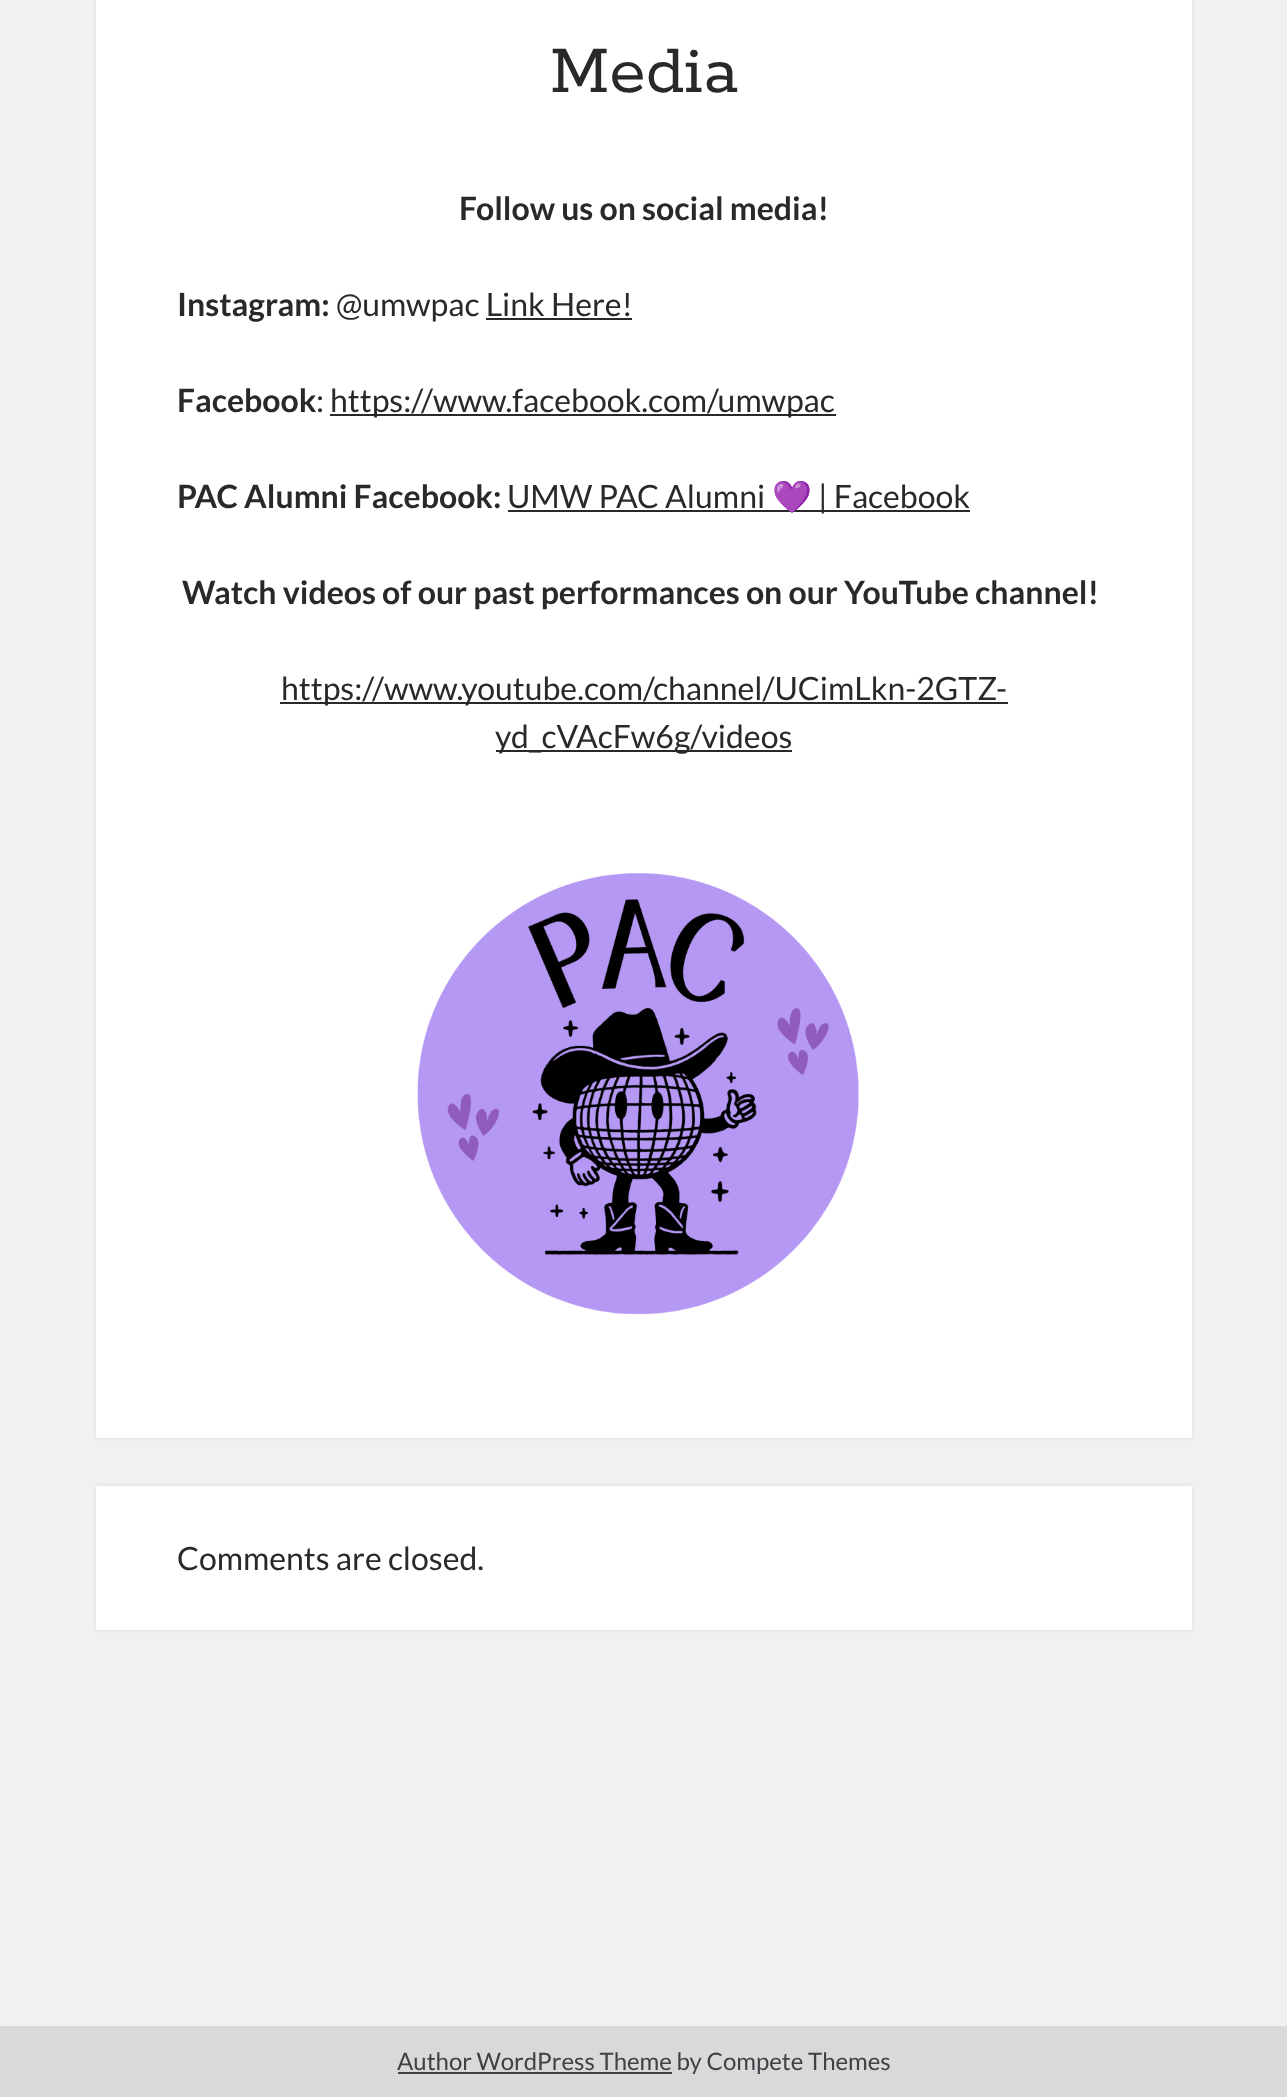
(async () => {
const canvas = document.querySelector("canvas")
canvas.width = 1287
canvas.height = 2097
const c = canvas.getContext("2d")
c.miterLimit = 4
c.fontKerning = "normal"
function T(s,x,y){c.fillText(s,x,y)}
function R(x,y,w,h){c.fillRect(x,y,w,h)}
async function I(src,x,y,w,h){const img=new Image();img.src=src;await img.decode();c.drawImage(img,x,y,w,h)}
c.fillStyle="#f0f1f2"
R(0,0,1287,2097)
c.fillStyle="#272b2f1a"
c.filter="blur(2px)"
c.beginPath()
c.rect(96,-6,1096,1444)
c.fill()
c.filter="none"
c.fillStyle="#fff"
R(96,0,1096,1438)
c.font="74px Rokkitt"
c.fillStyle="#27292b"
T("Media",550,92)
c.font="bold 32px Lato"
T("Follow us on social media!",459,220)
T("Instagram:",177,316)
c.font="32px Lato"
T("@umwpac Link Here!",336,316)
R(486,318,146,2)
c.font="bold 32px Lato"
T("Facebook",177,412)
c.font="32px Lato"
T(":",316,412)
R(330,414,506,2)
T("https://www.facebook.com/umwpac",330,412)
c.font="bold 32px Lato"
T("PAC Alumni Facebook:",177,508)
c.font="32px Lato"
T("UMW PAC Alumni",507,508)
R(508,510,462,2)
c.font="32px Noto Color Emoji"
T("💜",772,508)
c.font="32px Lato"
T("| Facebook",818,508)
c.font="bold 32px Lato"
T("Watch videos of our past performances on our YouTube channel!",182,604)
R(280,702,728,2)
c.font="32px Lato"
T("https://www.youtube.com/channel/UCimLkn-2GTZ-",281,700)
R(496,750,296,2)
T("yd_cVAcFw6g/videos",495,748)
await I("1.png",417,873,442,442)
c.fillStyle="#272b2f1a"
c.filter="blur(2px)"
c.beginPath()
c.rect(96,1486,1096,144)
c.fill()
c.filter="none"
c.fillStyle="#fff"
R(96,1486,1096,144)
c.fillStyle="#27292b"
T("Comments are closed.",177,1570)
c.fillStyle="#d9d9d9"
R(0,2026,1287,71)
c.fillStyle="#3e4145"
R(398,2072,274,2)
c.font="24px Lato"
T("Author WordPress Theme by Compete Themes",397,2070)
})()
